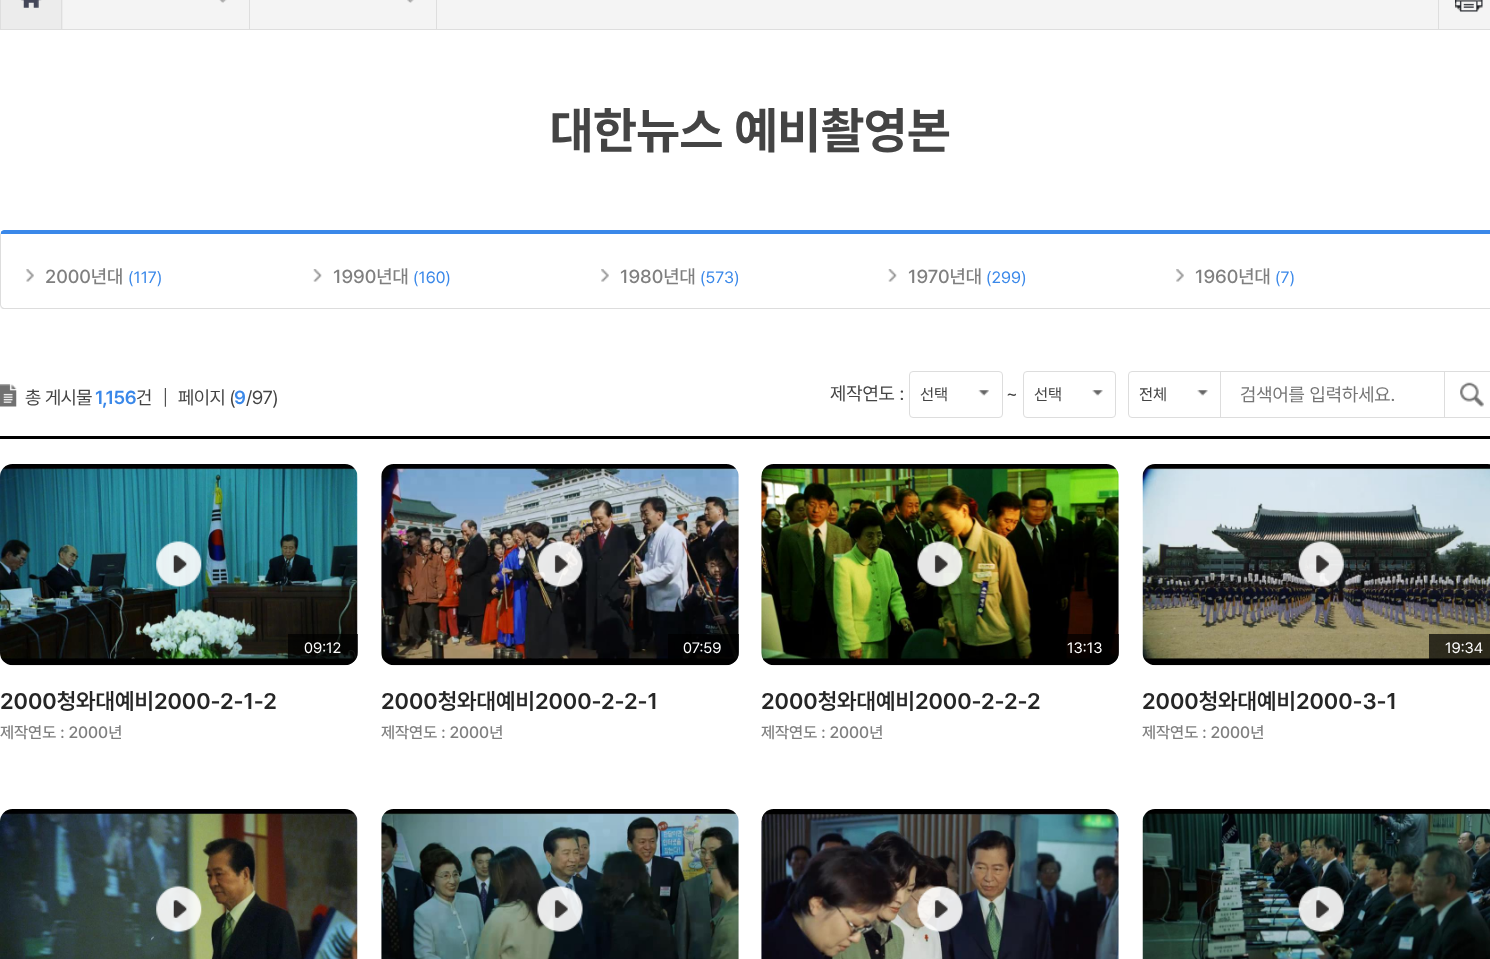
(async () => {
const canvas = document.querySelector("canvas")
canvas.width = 1490
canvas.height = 959
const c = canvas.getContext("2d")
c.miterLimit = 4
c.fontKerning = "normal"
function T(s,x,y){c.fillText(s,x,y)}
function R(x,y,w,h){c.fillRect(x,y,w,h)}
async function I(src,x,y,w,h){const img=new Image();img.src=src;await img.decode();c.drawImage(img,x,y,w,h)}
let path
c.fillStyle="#fff"
R(0,0,1490,959)
c.fillStyle="#f4f4f4"
R(63,0,1427,29)
c.fillStyle="#dedede"
R(0,29,1490,1)
c.fillStyle="#ececec"
R(1,0,62,29)
await I("1.png",21,0,21,8)
c.fillStyle="#dedede"
R(61,0,1,29)
R(0,0,1,29)
R(249,0,1,29)
await I("2.png",219,0,8,3)
R(436,0,1,29)
await I("3.png",407,0,7,3)
await I("4.png",1455,0,28,12)
R(1438,0,1,29)
c.font="bold 50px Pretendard"
c.fillStyle="#444"
T("대한뉴스 예비촬영본",550,148)
c.fillStyle="#3a88e9"
path = new Path2D("M4 230c-1 0-3 1-3 2v2h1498v-2c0-1-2-2-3-2z")
c.fill(path)
c.fillStyle="#ddd"
path = new Path2D("M3 309l-2-1l1-1l2 1h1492l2-1l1 1l-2 1z")
c.fill(path)
path = new Path2D("M0 234v71l1 3l1-1l-1-2v-71v-2z")
c.fill(path)
await I("5.png",26,269,8,13)
c.font="500 18.75px Pretendard"
c.fillStyle="#7f7f7f"
T("2000년대",45,283)
c.font="16.25px Pretendard"
c.fillStyle="#3a88e9"
T("(117)",128,283)
await I("6.png",313,269,9,13)
c.font="500 18.75px Pretendard"
c.fillStyle="#7f7f7f"
T("1990년대",333,283)
c.font="16.25px Pretendard"
c.fillStyle="#3a88e9"
T("(160)",413,283)
await I("7.png",601,269,8,13)
c.font="500 18.75px Pretendard"
c.fillStyle="#7f7f7f"
T("1980년대",620,283)
c.font="16.25px Pretendard"
c.fillStyle="#3a88e9"
T("(573)",700,283)
await I("8.png",888,269,9,13)
c.font="500 18.75px Pretendard"
c.fillStyle="#7f7f7f"
T("1970년대",908,283)
c.font="16.25px Pretendard"
c.fillStyle="#3a88e9"
T("(299)",986,283)
await I("7.png",1176,269,8,13)
c.font="500 18.75px Pretendard"
c.fillStyle="#7f7f7f"
T("1960년대",1195,283)
c.font="16.25px Pretendard"
c.fillStyle="#3a88e9"
T("(7)",1275,283)
await I("9.png",0,384,17,23)
c.letterSpacing="-0.5px"
c.font="18.75px Pretendard"
c.fillStyle="#444"
T("총 게시물",25,404)
c.font="600 18.75px Pretendard"
c.fillStyle="#3a88e9"
T("1,156",95,404)
c.font="18.75px Pretendard"
c.fillStyle="#444"
T("건",136,404)
c.font="18.75px Dotum"
T("│",156,404)
c.font="18.75px Pretendard"
T("페이지 (",178,404)
c.font="600 18.75px Pretendard"
c.fillStyle="#3a88e9"
T("9",234,404)
c.font="18.75px Pretendard"
c.fillStyle="#444"
T("/97)",246,404)
c.letterSpacing="0px"
T("제작연도 :",830,400)
await I("10.png",978,390,11,6)
c.beginPath()
c.roundRect(909.5,371.5,93,46,3.5)
c.strokeStyle="#ddd"
c.stroke()
c.font="16.25px Pretendard"
T("선택",920,400)
c.font="18.75px Pretendard"
T("~",1006,400)
await I("11.png",1092,390,11,6)
c.beginPath()
c.roundRect(1023.5,371.5,92,46,3.5)
c.stroke()
c.font="16.25px Pretendard"
T("선택",1034,400)
await I("12.png",1197,390,11,6)
c.beginPath()
c.roundRect(1128.5,371.5,92,46,[3.5,0,0,3.5])
c.stroke()
T("전체",1139,400)
c.strokeRect(1220.5,371.5,224,46)
c.font="18.75px Pretendard"
c.fillStyle="#757575"
T("검색어를 입력하세요.",1240,401)
await I("13.png",1460,382,24,25)
c.strokeRect(1444.5,371.5,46,46)
c.fillStyle="#000"
R(0,436,1490,3)
await I("14.png",0,464,358,202)
await I("15.png",156,541,46,46)
c.fillStyle="#000000b3"
c.beginPath()
c.roundRect(288,634,70,31,[0,0,13,0])
c.fill()
c.font="15px Pretendard"
c.fillStyle="#fff"
T("09:12",304,653)
c.font="600 22.5px Pretendard"
c.fillStyle="#262626"
T("2000청와대예비2000-2-1-2",0,709)
c.font="500 16.25px Pretendard"
c.fillStyle="#7f7f7f"
T("제작연도 : 2000년",0,738)
await I("16.png",381,464,358,202)
await I("17.png",537,541,46,46)
c.fillStyle="#000000b3"
c.beginPath()
c.roundRect(668,634,71,31,[0,0,13,0])
c.fill()
c.font="15px Pretendard"
c.fillStyle="#fff"
T("07:59",683,653)
c.font="600 22.5px Pretendard"
c.fillStyle="#262626"
T("2000청와대예비2000-2-2-1",381,709)
c.font="500 16.25px Pretendard"
c.fillStyle="#7f7f7f"
T("제작연도 : 2000년",381,738)
await I("18.png",761,464,358,202)
await I("19.png",917,541,46,46)
c.fillStyle="#000000b3"
c.beginPath()
c.roundRect(1051,634,68,31,[0,0,13,0])
c.fill()
c.font="15px Pretendard"
c.fillStyle="#fff"
T("13:13",1067,653)
c.font="600 22.5px Pretendard"
c.fillStyle="#262626"
T("2000청와대예비2000-2-2-2",761,709)
c.font="500 16.25px Pretendard"
c.fillStyle="#7f7f7f"
T("제작연도 : 2000년",761,738)
await I("20.png",1142,464,348,202)
await I("21.png",1298,541,46,46)
c.fillStyle="#000000b3"
path = new Path2D("M1429 634h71v18c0 7-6 13-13 13h-58z")
c.fill(path)
c.font="15px Pretendard"
c.fillStyle="#fff"
T("19:34",1445,653)
c.font="600 22.5px Pretendard"
c.fillStyle="#262626"
T("2000청와대예비2000-3-1",1142,709)
c.font="500 16.25px Pretendard"
c.fillStyle="#7f7f7f"
T("제작연도 : 2000년",1142,738)
await I("22.png",0,809,358,150)
await I("23.png",156,886,46,46)
await I("24.png",381,809,358,150)
await I("25.png",537,886,46,46)
await I("26.png",761,809,358,150)
await I("27.png",917,886,46,46)
await I("28.png",1142,809,348,150)
await I("29.png",1298,886,46,46)
})()
